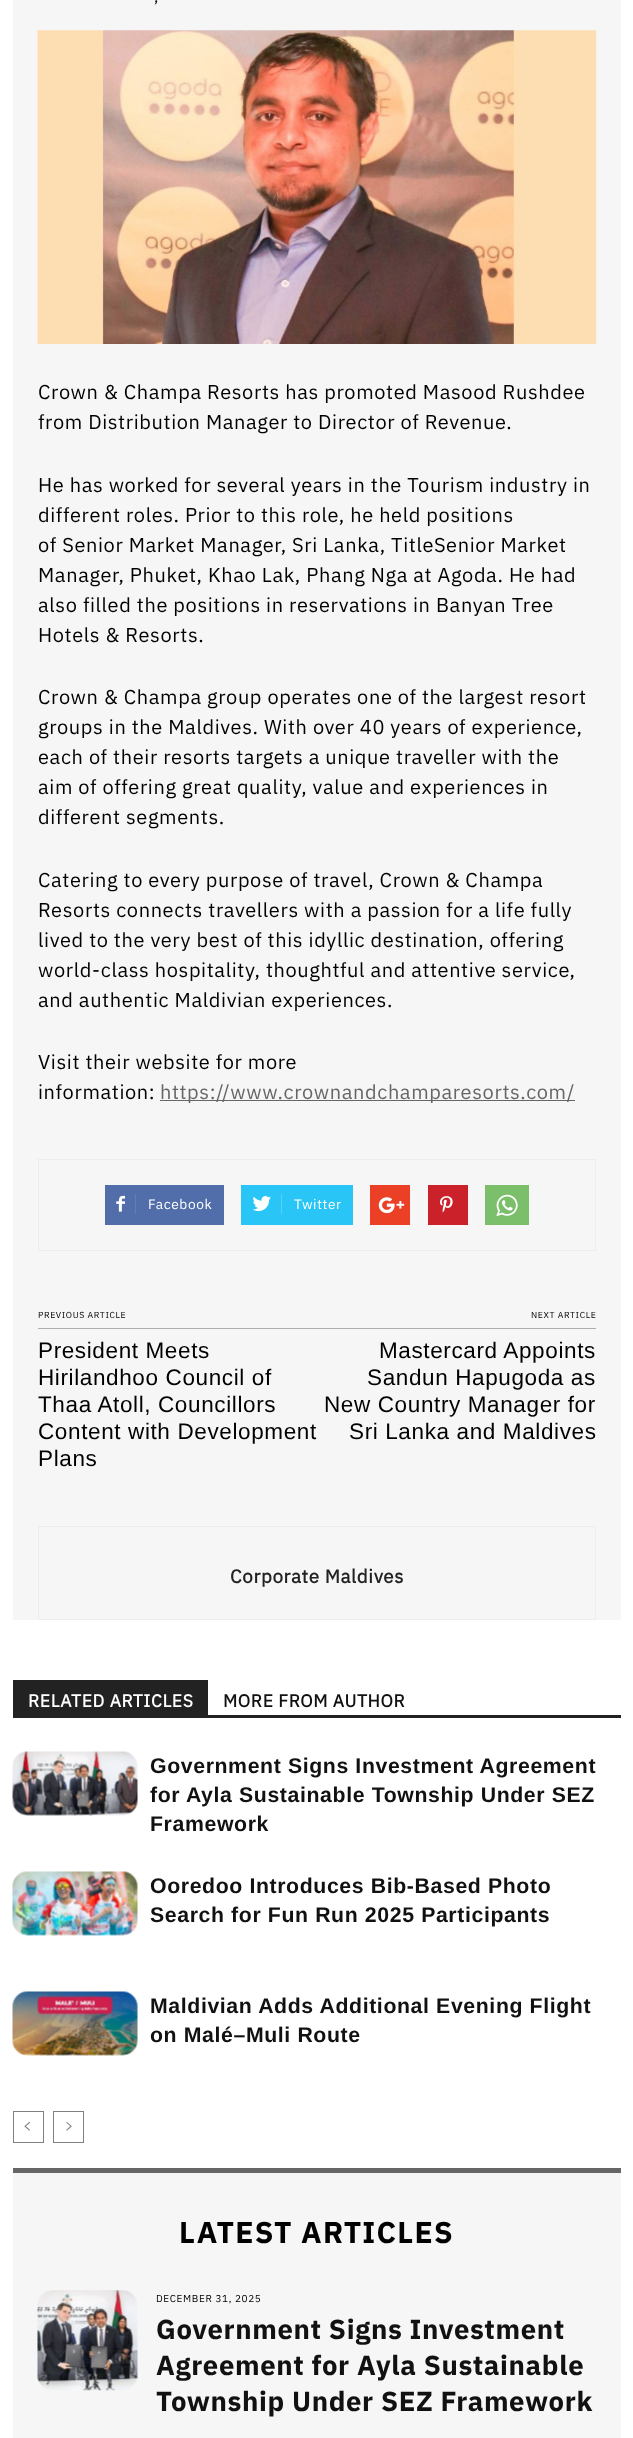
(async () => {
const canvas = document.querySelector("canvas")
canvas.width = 633
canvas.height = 2438
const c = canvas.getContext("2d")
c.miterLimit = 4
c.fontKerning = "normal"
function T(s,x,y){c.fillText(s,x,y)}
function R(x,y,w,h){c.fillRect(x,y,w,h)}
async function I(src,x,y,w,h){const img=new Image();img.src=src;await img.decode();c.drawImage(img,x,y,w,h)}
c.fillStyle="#fff"
R(0,0,633,2438)
c.fillStyle="#f6f6f6"
R(13,0,608,1620)
c.letterSpacing="0.62px"
c.font="16px IBM Plex Sans"
c.fillStyle="#000"
T(",",154,2)
await I("1.png",37,30,560,314)
c.font="20px IBM Plex Sans"
T("Crown & Champa Resorts has promoted Masood Rushdee",38,399)
T("from Distribution Manager to Director of Revenue.",38,429)
T("He has worked for several years in the Tourism industry in",38,492)
T("different roles. Prior to this role, he held positions",38,522)
T("of Senior Market Manager, Sri Lanka, TitleSenior Market",38,552)
T("Manager, Phuket, Khao Lak, Phang Nga at Agoda. He had",38,582)
T("also filled the positions in reservations in Banyan Tree",38,612)
T("Hotels & Resorts.",38,642)
T("Crown & Champa group operates one of the largest resort",38,704)
T("groups in the Maldives. With over 40 years of experience,",38,734)
T("each of their resorts targets a unique traveller with the",38,764)
T("aim of offering great quality, value and experiences in",38,794)
T("different segments.",38,824)
T("Catering to every purpose of travel, Crown & Champa",38,887)
T("Resorts connects travellers with a passion for a life fully",38,917)
T("lived to the very best of this idyllic destination, offering",38,947)
T("world-class hospitality, thoughtful and attentive service,",38,977)
T("and authentic Maldivian experiences.",38,1007)
T("Visit their website for more",38,1069)
T("information:",38,1099)
c.fillStyle="#666"
R(160,1100,415,1)
T("https://www.crownandchamparesorts.com/",160,1099)
c.strokeStyle="#ededed"
c.strokeRect(38.5,1159.5,557,91)
c.fillStyle="#516eab"
R(105,1185,119,40)
await I("2.png",116,1195,9,17)
c.fillStyle="#627db3"
R(135,1194,1,20)
c.font="13.75px IBM Plex Sans"
c.fillStyle="#fff"
T("Facebook",148,1209)
c.fillStyle="#29c5f6"
R(241,1185,112,40)
await I("3.png",252,1196,19,16)
c.fillStyle="#54d1f8"
R(281,1194,1,20)
c.fillStyle="#fff"
T("Twitter",294,1209)
c.fillStyle="#eb4026"
R(370,1185,40,40)
await I("4.png",378,1197,27,17)
c.fillStyle="#ca212a"
R(428,1185,40,40)
await I("5.png",440,1196,13,17)
c.fillStyle="#7bbf6a"
R(485,1185,44,40)
await I("6.png",496,1194,22,23)
c.fillStyle="#aeaeae"
R(38,1328,558,1)
c.font="8.75px IBM Plex Sans"
c.fillStyle="#000"
T("PREVIOUS ARTICLE",38,1318)
c.font="22.5px Liberation Sans"
T("President Meets",38,1358)
T("Hirilandhoo Council of",38,1385)
T("Thaa Atoll, Councillors",38,1412)
T("Content with Development",38,1439)
T("Plans",38,1466)
c.font="8.75px IBM Plex Sans"
T("NEXT ARTICLE",531,1318)
c.font="22.5px Liberation Sans"
T("Mastercard Appoints",379,1358)
T("Sandun Hapugoda as",367,1385)
T("New Country Manager for",324,1412)
T("Sri Lanka and Maldives",349,1439)
c.strokeRect(38.5,1526.5,557,93)
c.font="bold 18.75px IBM Plex Sans"
c.fillStyle="#222"
T("Corporate Maldives",230,1583)
R(13,1715,608,3)
R(13,1680,195,35)
c.font="bold 17.5px IBM Plex Sans"
c.fillStyle="#fff"
T("RELATED ARTICLES",28,1707)
c.fillStyle="#111"
T("MORE FROM AUTHOR",223,1707)
await I("7.png",12,1751,126,65)
c.font="bold 21.25px Liberation Sans"
T("Government Signs Investment Agreement",150,1773)
T("for Ayla Sustainable Township Under SEZ",150,1802)
T("Framework",150,1831)
await I("8.png",12,1871,126,65)
T("Ooredoo Introduces Bib-Based Photo",150,1893)
T("Search for Fun Run 2025 Participants",150,1922)
await I("9.png",12,1991,126,65)
T("Maldivian Adds Additional Evening Flight",150,2013)
T("on Malé–Muli Route",150,2042)
c.strokeStyle="#808080"
c.strokeRect(13.5,2111.5,30,31)
await I("10.png",24,2121,6,10)
c.strokeRect(53.5,2111.5,30,31)
await I("11.png",66,2122,6,9)
c.fillStyle="#f6f6f6"
R(13,2173,608,265)
c.fillStyle="#666"
R(13,2168,608,5)
c.letterSpacing="1.25px"
c.font="bold 30px 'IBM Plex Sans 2'"
c.fillStyle="#000"
T("LATEST ARTICLES",179,2243)
await I("12.png",37,2290,101,101)
c.letterSpacing="0.62px"
c.font="10px IBM Plex Sans"
T("DECEMBER 31, 2025",156,2302)
c.font="bold 27.5px 'IBM Plex Sans 2'"
c.fillStyle="#111"
T("Government Signs Investment",156,2339)
T("Agreement for Ayla Sustainable",156,2375)
T("Township Under SEZ Framework",156,2411)
})()
